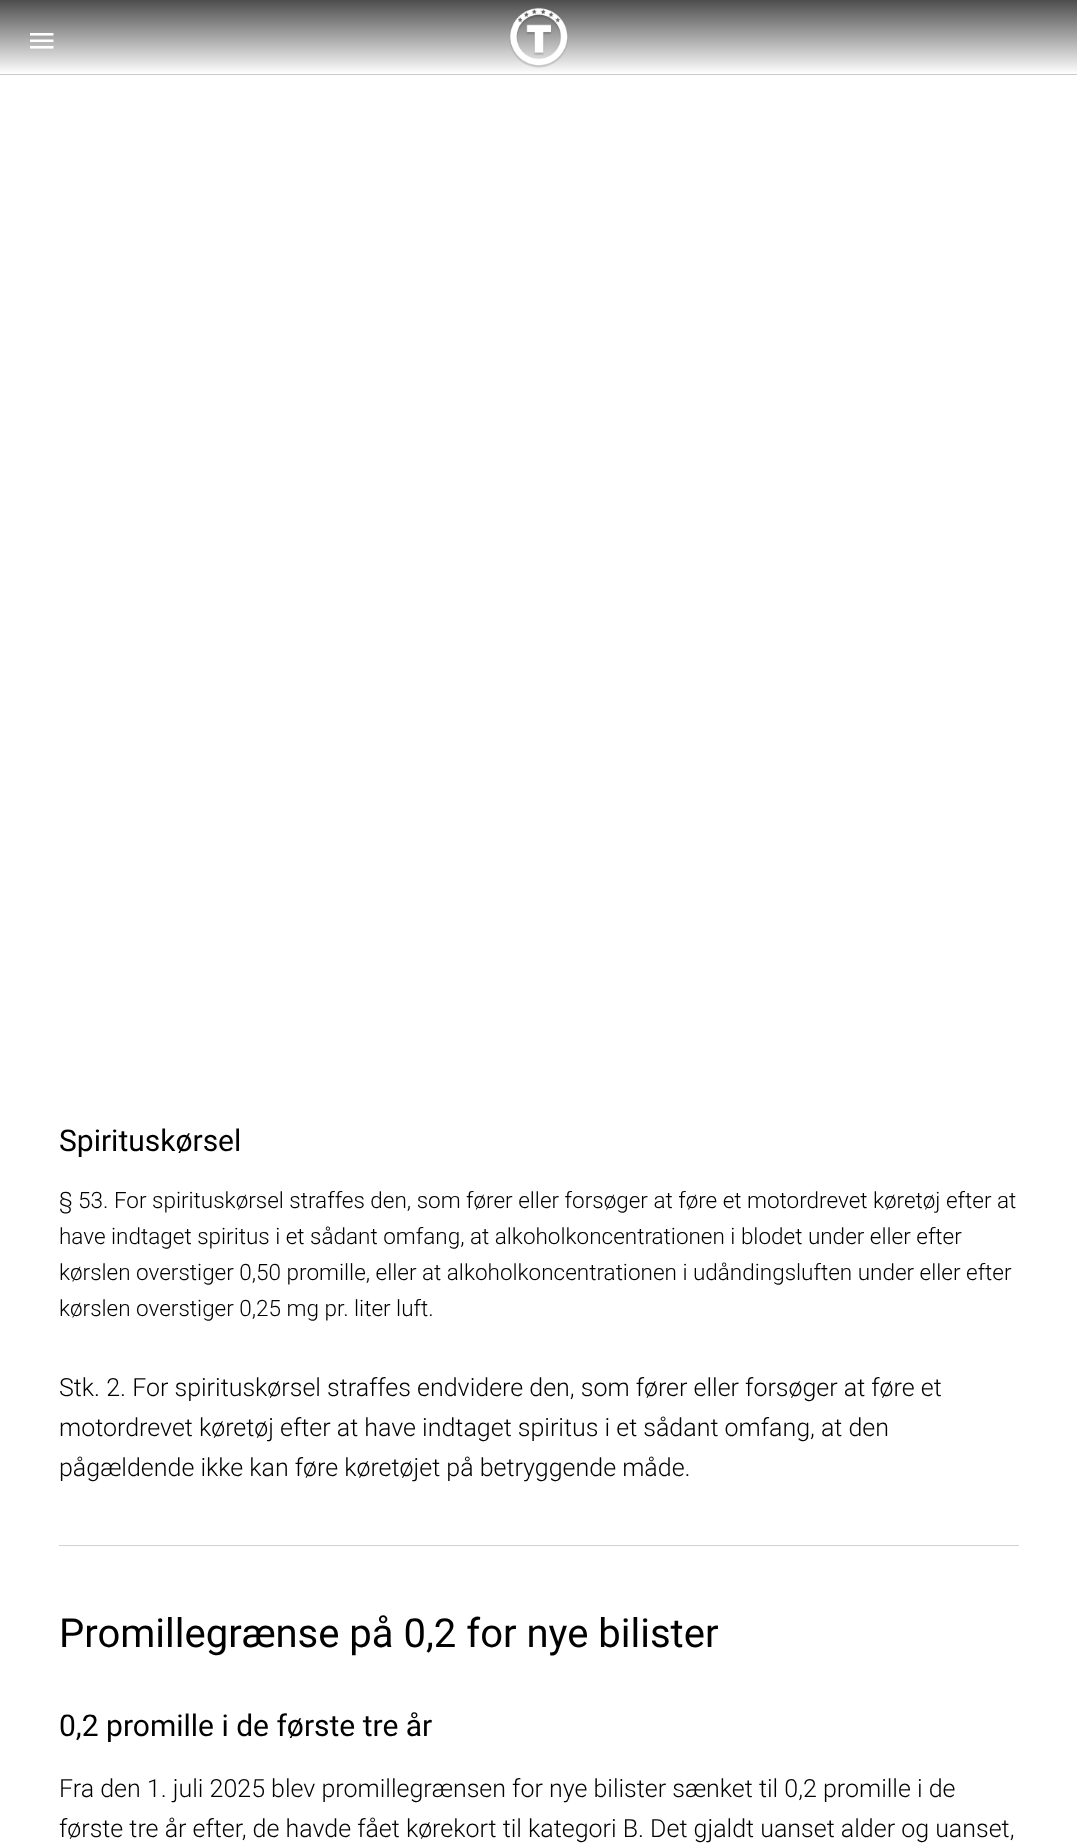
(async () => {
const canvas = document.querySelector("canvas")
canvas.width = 1077
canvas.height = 1848
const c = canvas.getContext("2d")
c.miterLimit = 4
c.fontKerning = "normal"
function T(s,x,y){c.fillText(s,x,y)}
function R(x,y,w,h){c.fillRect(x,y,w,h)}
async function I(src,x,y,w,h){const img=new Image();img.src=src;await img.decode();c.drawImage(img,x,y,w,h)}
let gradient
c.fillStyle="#fff"
R(0,0,1077,1848)
gradient = c.createLinearGradient(539,0,539,74)
gradient.addColorStop(0,"#4d4d4d")
gradient.addColorStop(1,"#fff")
c.fillStyle = gradient
R(0,0,1077,73)
c.fillStyle="#cacaca"
R(0,74,1077,1)
await I("1.png",30,33,24,16)
await I("2.png",509,7,59,61)
c.font="30px Roboto"
c.fillStyle="#000"
T("Spirituskørsel",59,1151)
c.font="300 22.5px Roboto"
T("§ 53. For spirituskørsel straffes den, som fører eller forsøger at føre et motordrevet køretøj efter at",59,1208)
T("have indtaget spiritus i et sådant omfang, at alkoholkoncentrationen i blodet under eller efter",59,1244)
T("kørslen overstiger 0,50 promille, eller at alkoholkoncentrationen i udåndingsluften under eller efter",59,1280)
T("kørslen overstiger 0,25 mg pr. liter luft.",59,1316)
c.font="300 25px Roboto"
T("Stk. 2. For spirituskørsel straffes endvidere den, som fører eller forsøger at føre et",59,1396)
T("motordrevet køretøj efter at have indtaget spiritus i et sådant omfang, at den",59,1436)
T("pågældende ikke kan føre køretøjet på betryggende måde.",59,1476)
c.fillStyle="#d1d1d1"
R(59,1545,960,1)
c.font="40px Roboto"
c.fillStyle="#000"
T("Promillegrænse på 0,2 for nye bilister",59,1647)
c.font="30px Roboto"
T("0,2 promille i de første tre år",59,1736)
c.font="300 25px Roboto"
T("Fra den 1. juli 2025 blev promillegrænsen for nye bilister sænket til 0,2 promille i de",59,1797)
T("første tre år efter, de havde fået kørekort til kategori B. Det gjaldt uanset alder og uanset,",59,1837)
})()
